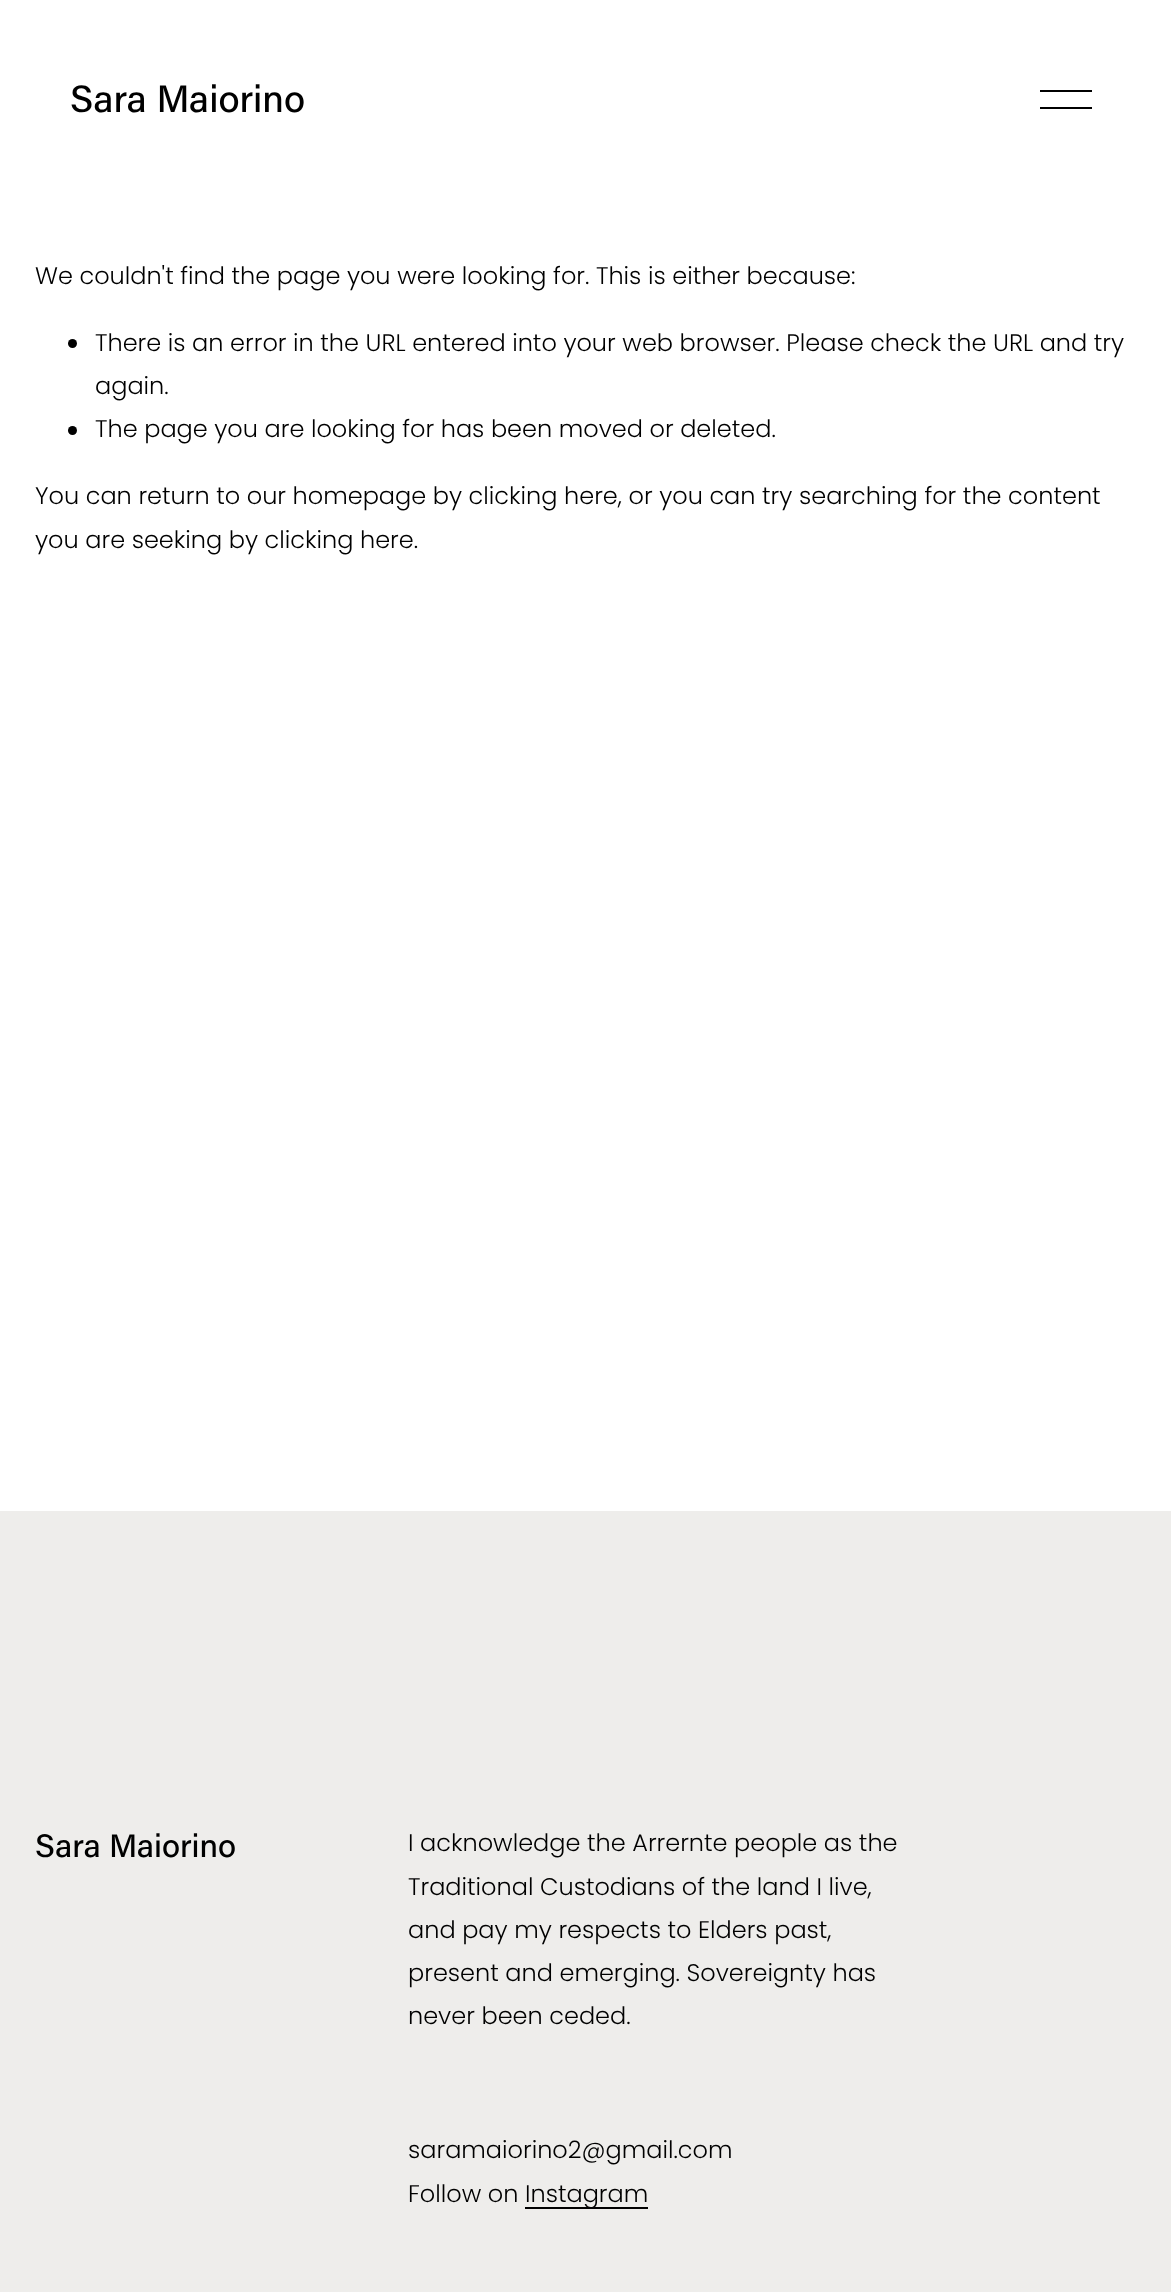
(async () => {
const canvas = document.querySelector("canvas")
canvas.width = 1171
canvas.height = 2292
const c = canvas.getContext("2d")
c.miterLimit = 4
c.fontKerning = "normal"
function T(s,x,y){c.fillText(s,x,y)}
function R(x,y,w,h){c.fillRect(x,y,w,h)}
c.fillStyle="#fff"
R(0,0,1171,2292)
c.font="500 38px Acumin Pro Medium"
c.fillStyle="#000"
T("Sara Maiorino",70,112)
R(1040,90,52,2)
R(1040,107,52,2)
c.font="300 24px Poppins"
T("We couldn't find the page you were looking for. This is either because:",35,284)
c.beginPath()
c.arc(72.5,343.5,4.5,0,7)
c.fill()
T("There is an error in the URL entered into your web browser. Please check the URL and try",95,351)
T("again.",95,394)
c.beginPath()
c.arc(72.5,430.5,4.5,0,7)
c.fill()
T("The page you are looking for has been moved or deleted.",95,437)
T("You can return to our homepage by clicking here, or you can try searching for the content",35,504)
T("you are seeking by clicking here.",35,548)
c.fillStyle="#eeedeb"
R(0,1511,1171,781)
c.font="500 32.5px Acumin Pro Medium"
c.fillStyle="#000"
T("Sara Maiorino",35,1857)
c.font="300 24px Poppins"
T("I acknowledge the Arrernte people as the",408,1851)
T("Traditional Custodians of the land I live,",408,1895)
T("and pay my respects to Elders past,",408,1938)
T("present and emerging. Sovereignty has",408,1981)
T("never been ceded.",408,2024)
T("saramaiorino2@gmail.com",408,2158)
T("Follow on",408,2202)
R(525,2207,123,2)
T("Instagram",525,2202)
})()
